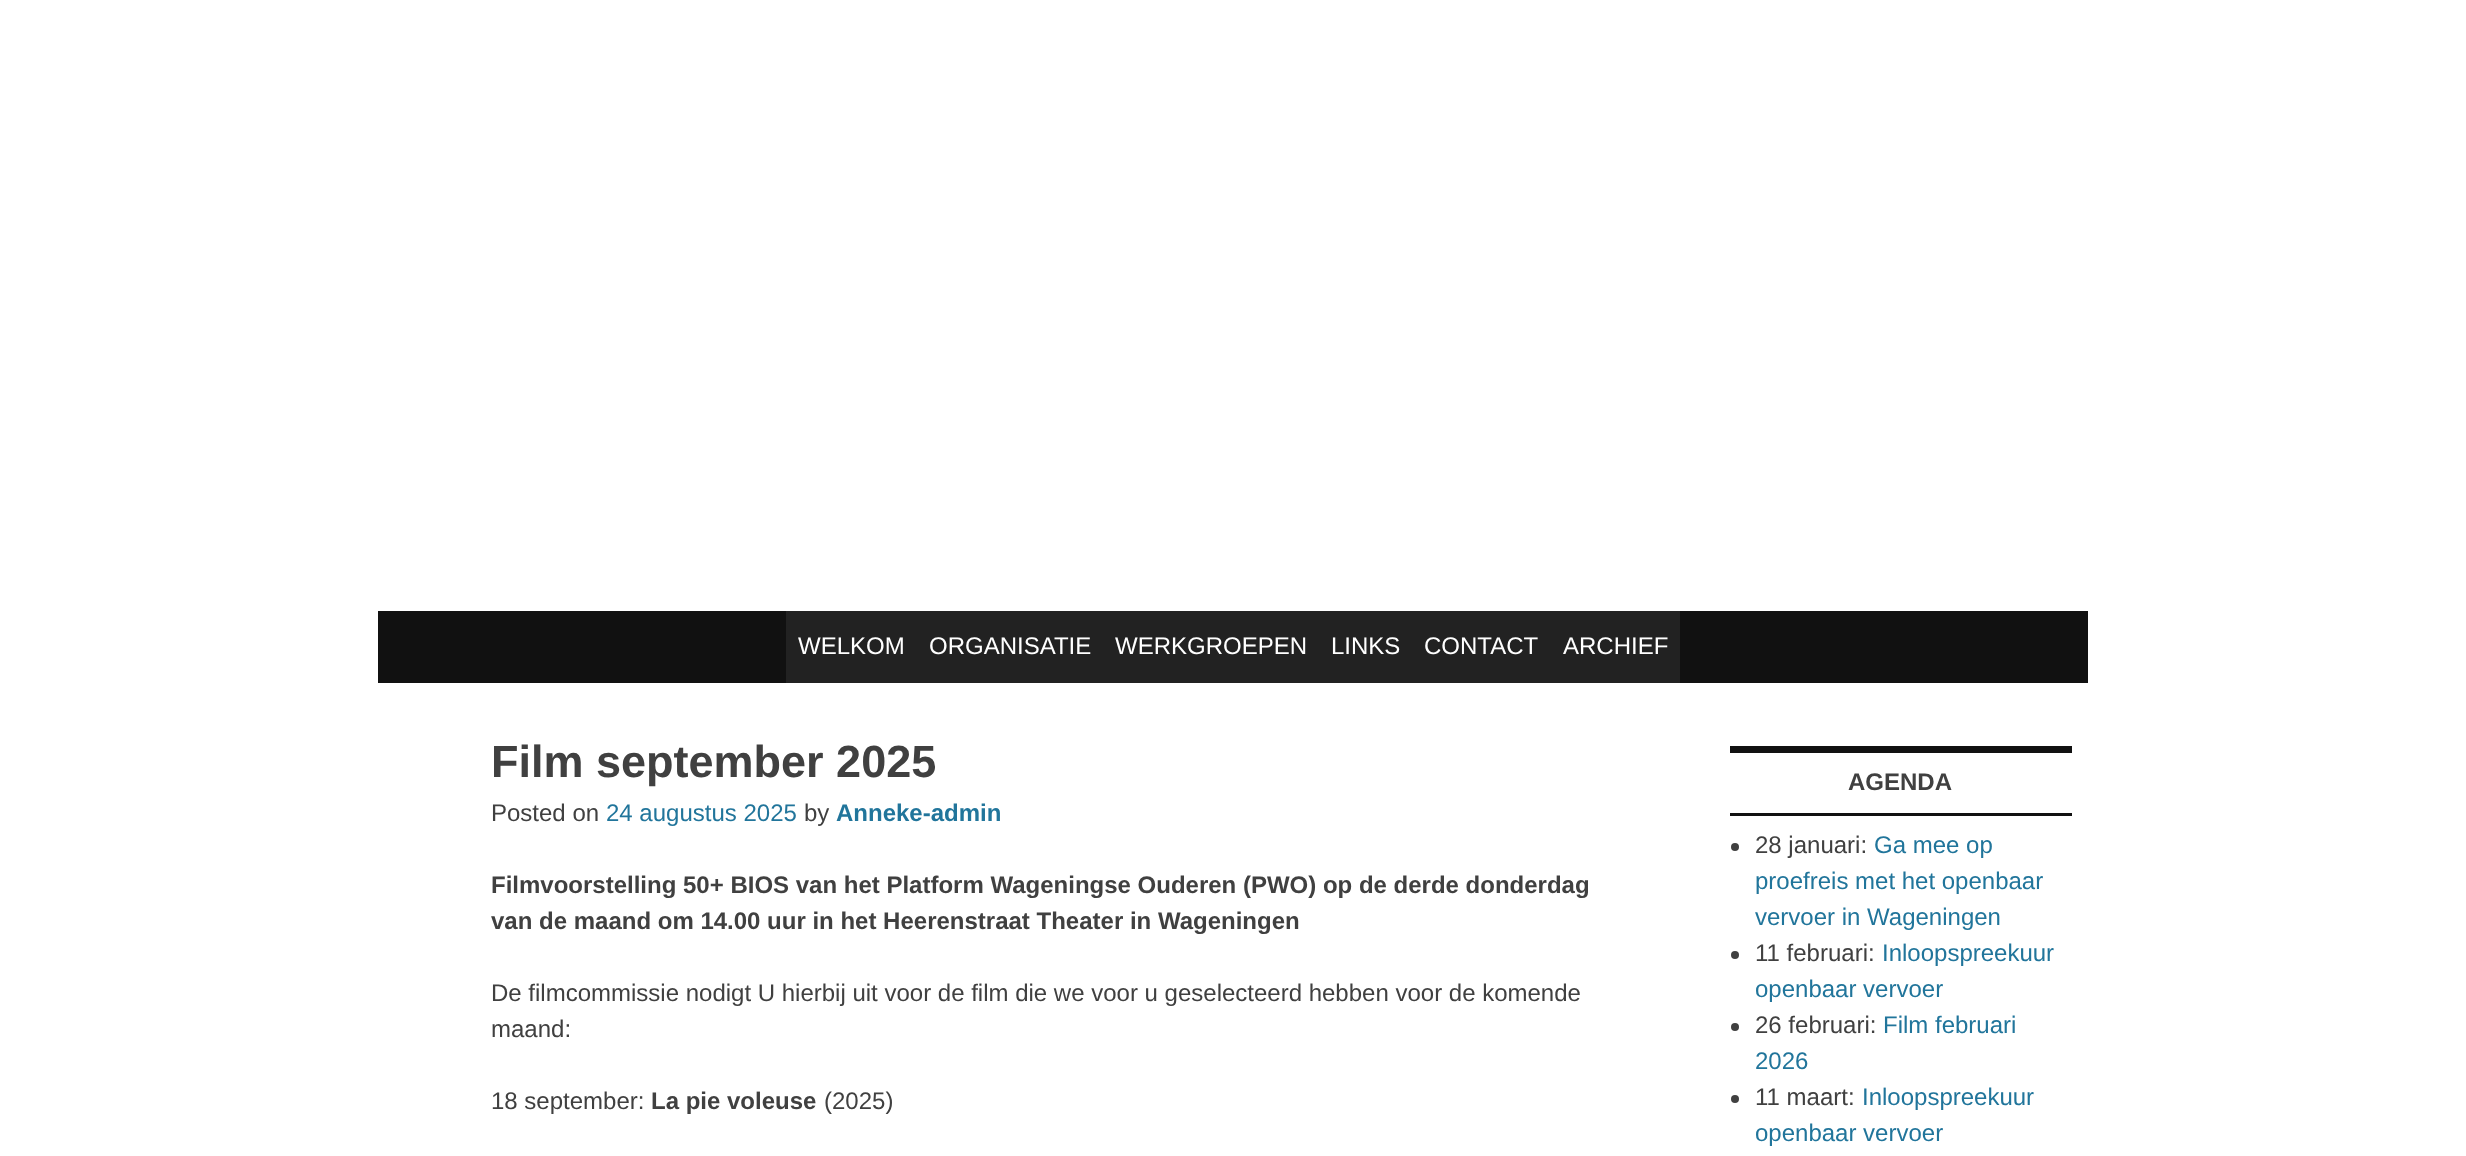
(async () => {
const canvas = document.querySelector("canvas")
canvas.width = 2466
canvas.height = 1156
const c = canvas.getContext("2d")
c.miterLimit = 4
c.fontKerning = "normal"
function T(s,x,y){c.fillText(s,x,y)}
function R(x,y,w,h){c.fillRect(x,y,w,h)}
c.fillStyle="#fff"
R(0,0,2466,1156)
c.fillStyle="#111"
R(378,611,1710,72)
c.fillStyle="#222"
R(786,611,894,72)
c.font="24px Liberation Sans"
c.fillStyle="#fff"
T("WELKOM",798,654)
T("ORGANISATIE",929,654)
T("WERKGROEPEN",1115,654)
T("LINKS",1331,654)
T("CONTACT",1424,654)
T("ARCHIEF",1563,654)
c.font="bold 45px Liberation Sans"
c.fillStyle="#404040"
T("Film september 2025",491,777)
c.font="24px Liberation Sans"
T("Posted on",491,821)
c.fillStyle="#21759b"
T("24 augustus 2025",606,821)
c.fillStyle="#404040"
T("by",804,821)
c.font="bold 24px Liberation Sans"
c.fillStyle="#21759b"
T("Anneke-admin",836,821)
c.fillStyle="#404040"
T("Filmvoorstelling 50+ BIOS van het Platform Wageningse Ouderen (PWO) op de derde donderdag",491,893)
T("van de maand om 14.00 uur in het Heerenstraat Theater in Wageningen",491,929)
c.font="24px Liberation Sans"
T("De filmcommissie nodigt U hierbij uit voor de film die we voor u geselecteerd hebben voor de komende",491,1001)
T("maand:",491,1037)
T("18 september:",491,1109)
c.font="bold 24px Liberation Sans"
T("La pie voleuse",651,1109)
c.font="24px Liberation Sans"
T("(2025)",824,1109)
c.fillStyle="#111"
R(1730,746,342,7)
c.font="bold 24px Liberation Sans"
c.fillStyle="#404040"
T("AGENDA",1848,790)
c.fillStyle="#111"
R(1730,813,342,3)
c.fillStyle="#404040"
c.beginPath()
c.arc(1735,847,4,0,7)
c.fill()
c.font="24px Liberation Sans"
T("28 januari:",1755,853)
c.fillStyle="#21759b"
T("Ga mee op",1874,853)
T("proefreis met het openbaar",1755,889)
T("vervoer in Wageningen",1755,925)
c.fillStyle="#404040"
c.beginPath()
c.arc(1735,955,4,0,7)
c.fill()
T("11 februari:",1755,961)
c.fillStyle="#21759b"
T("Inloopspreekuur",1882,961)
T("openbaar vervoer",1755,997)
c.fillStyle="#404040"
c.beginPath()
c.arc(1735,1027,4,0,7)
c.fill()
T("26 februari:",1755,1033)
c.fillStyle="#21759b"
T("Film februari",1883,1033)
T("2026",1755,1069)
c.fillStyle="#404040"
c.beginPath()
c.arc(1735,1099,4,0,7)
c.fill()
T("11 maart:",1755,1105)
c.fillStyle="#21759b"
T("Inloopspreekuur",1862,1105)
T("openbaar vervoer",1755,1141)
})()
